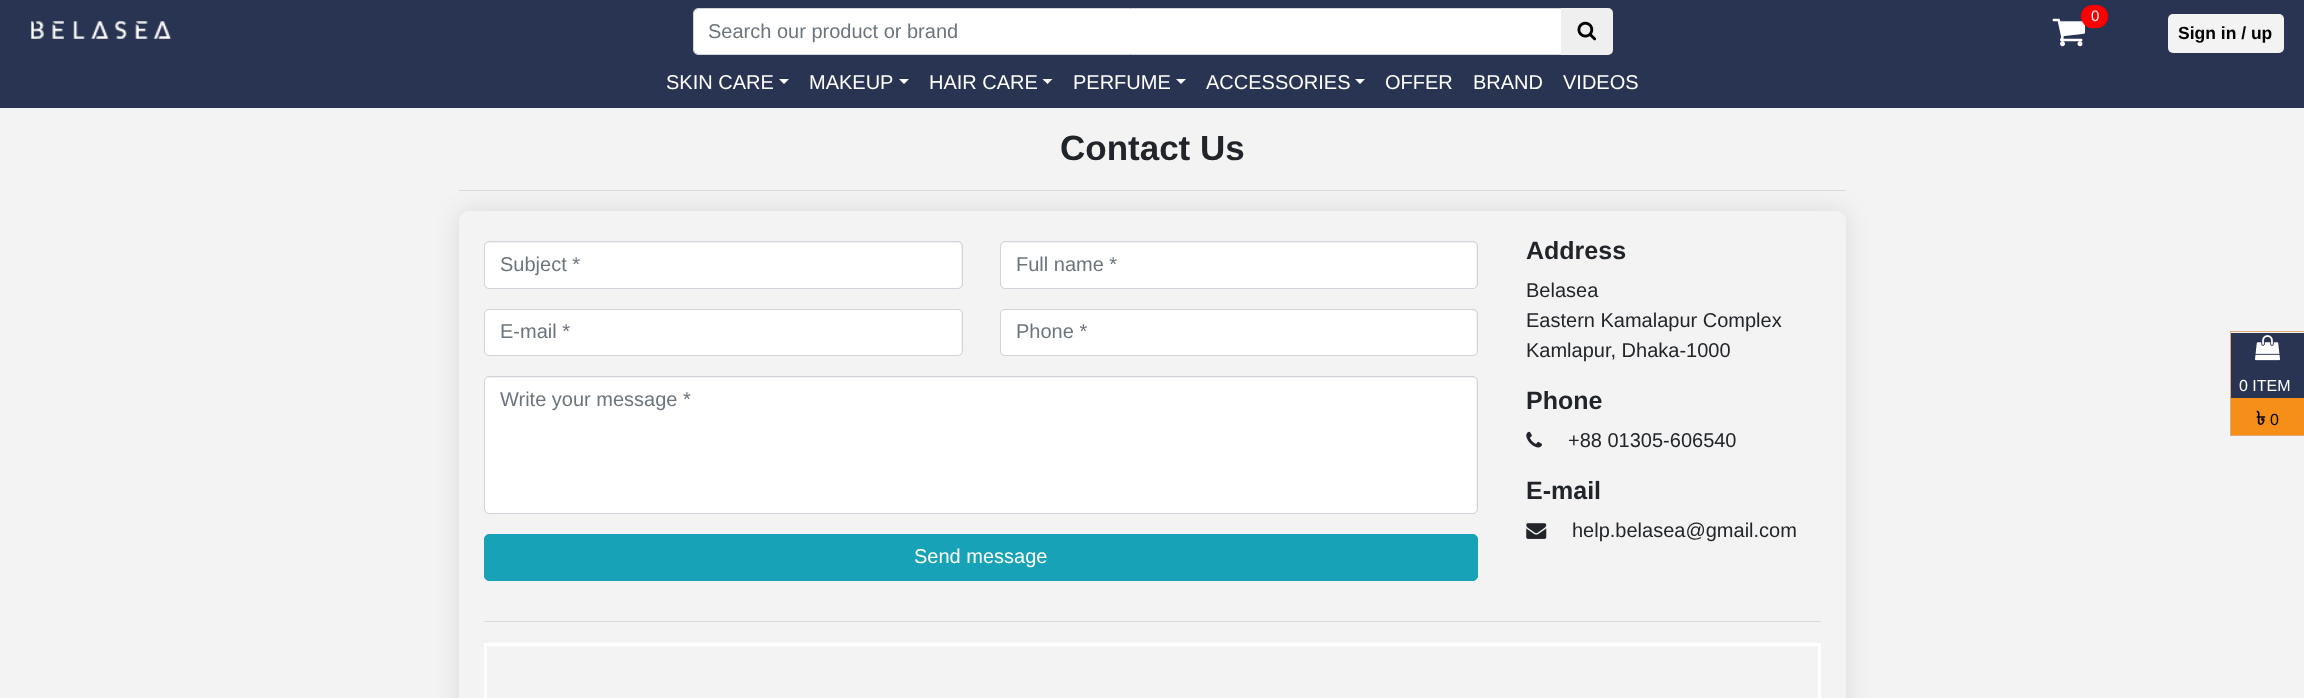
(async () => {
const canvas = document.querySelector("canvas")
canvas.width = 2304
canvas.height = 698
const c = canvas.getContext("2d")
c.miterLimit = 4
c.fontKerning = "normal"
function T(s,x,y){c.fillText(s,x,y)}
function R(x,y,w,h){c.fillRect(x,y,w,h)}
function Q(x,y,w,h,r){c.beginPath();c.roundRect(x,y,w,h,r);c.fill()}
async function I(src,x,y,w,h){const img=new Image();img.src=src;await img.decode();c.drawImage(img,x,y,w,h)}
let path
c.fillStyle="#f3f3f3"
R(0,0,2304,698)
c.fillStyle="#293352"
R(0,0,2304,108)
await I("1.png",31,21,141,18)
c.fillStyle="#fff"
c.beginPath()
c.roundRect(694,9,867,45,[4,0,0,4])
c.fill()
c.beginPath()
c.roundRect(693.5,8.5,869,46,[4.5,0,0,4.5])
c.strokeStyle="#ced4da"
c.stroke()
c.font="20px Liberation Sans"
c.fillStyle="#6c757d"
T("Search our product or brand",708,38)
c.fillStyle="#efefef"
c.beginPath()
c.roundRect(1561,8,52,47,[0,5,5,0])
c.fill()
await I("2.png",1577,21,19,20)
await I("3.png",2052,18,33,29)
c.fillStyle="#f00"
Q(2081,5,27,23,11.5)
c.font="15px Liberation Sans"
c.fillStyle="#fff"
T("0",2091,21)
c.fillStyle="#f3f3f3"
Q(2168,14,116,39,5)
c.font="bold 17.5px Liberation Sans"
c.fillStyle="#000"
T("Sign in / up",2178,39)
c.font="20px Liberation Sans"
c.fillStyle="#fff"
T("SKIN CARE",666,89)
path = new Path2D("M779 79h10l-5 5z")
c.fill(path)
T("MAKEUP",809,89)
path = new Path2D("M899 79h10l-5 5z")
c.fill(path)
T("HAIR CARE",929,89)
path = new Path2D("M1042.5 79h10l-5 5z")
c.fill(path)
T("PERFUME",1073,89)
path = new Path2D("M1176 79h10l-5 5z")
c.fill(path)
T("ACCESSORIES",1206,89)
path = new Path2D("M1355 79h10l-5 5z")
c.fill(path)
T("OFFER",1385,89)
T("BRAND",1473,89)
T("VIDEOS",1563,89)
c.font="bold 35px Liberation Sans"
c.fillStyle="#212529"
T("Contact Us",1060,160)
c.fillStyle="#dbdbdb"
R(459,190,1387,1)
c.save()
path = new Path2D("M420 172h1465v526h-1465zm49 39h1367c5.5 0 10 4.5 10 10v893c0 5.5-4.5 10-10 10h-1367c-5.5 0-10-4.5-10-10v-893c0-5.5 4.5-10 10-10z")
c.clip(path,"evenodd")
c.fillStyle="#0000001a"
c.filter="blur(12.5px)"
c.beginPath()
c.roundRect(459,211,1387,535,10)
c.fill()
c.filter="none"
c.restore()
c.fillStyle="#fff"
Q(485,243,476,45,4)
c.beginPath()
c.roundRect(484.5,241.5,478,47,4.5)
c.stroke()
c.font="20px Liberation Sans"
c.fillStyle="#6c757d"
T("Subject *",500,271)
c.fillStyle="#fff"
Q(1001,243,475,45,4)
c.beginPath()
c.roundRect(1000.5,241.5,477,47,4.5)
c.stroke()
c.fillStyle="#6c757d"
T("Full name *",1016,271)
c.fillStyle="#fff"
Q(485,310,476,45,4)
c.beginPath()
c.roundRect(484.5,309.5,478,46,4.5)
c.stroke()
c.fillStyle="#6c757d"
T("E-mail *",500,338)
c.fillStyle="#fff"
Q(1001,310,475,45,4)
c.beginPath()
c.roundRect(1000.5,309.5,477,46,4.5)
c.stroke()
c.fillStyle="#6c757d"
T("Phone *",1016,338)
c.fillStyle="#fff"
Q(485,378,991,135,4)
c.beginPath()
c.roundRect(484.5,376.5,993,137,4.5)
c.stroke()
c.fillStyle="#6c757d"
T("Write your message *",500,406)
c.fillStyle="#17a2b8"
c.beginPath()
c.roundRect(484.5,534.5,993,46,4.5)
c.fill()
c.strokeStyle="#17a2b8"
c.stroke()
c.fillStyle="#fff"
T("Send message",914,563)
c.font="bold 25px Liberation Sans"
c.fillStyle="#212529"
T("Address",1526,259)
c.font="20px Liberation Sans"
T("Belasea",1526,297)
T("Eastern Kamalapur Complex",1526,327)
T("Kamlapur, Dhaka-1000",1526,357)
c.font="bold 25px Liberation Sans"
T("Phone",1526,409)
await I("4.png",1526,431,16,17)
c.font="20px Liberation Sans"
T("+88 01305-606540",1568,447)
c.font="bold 25px Liberation Sans"
T("E-mail",1526,499)
await I("5.png",1526,523,21,16)
c.font="20px Liberation Sans"
T("help.belasea@gmail.com",1572,537)
c.fillStyle="#dbdbdb"
R(484,621,1337,1)
c.strokeStyle="#fff"
c.lineWidth=3
c.strokeRect(485.5,644.5,1334,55)
c.strokeStyle="#deaa78"
c.lineWidth=1
c.strokeRect(2230.5,331.5,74,104)
c.fillStyle="#293352"
R(2231,333,73,65)
await I("6.png",2255,335,25,26)
c.font="16px Liberation Sans"
c.fillStyle="#fff"
T("0 ITEM",2239,391)
c.fillStyle="#f68f18"
R(2231,398,73,37)
c.font="bold 19px Lohit Bengali"
c.fillStyle="#000"
T("৳",2256,425)
c.font="16px Liberation Sans"
T("0",2270,425)
})()
